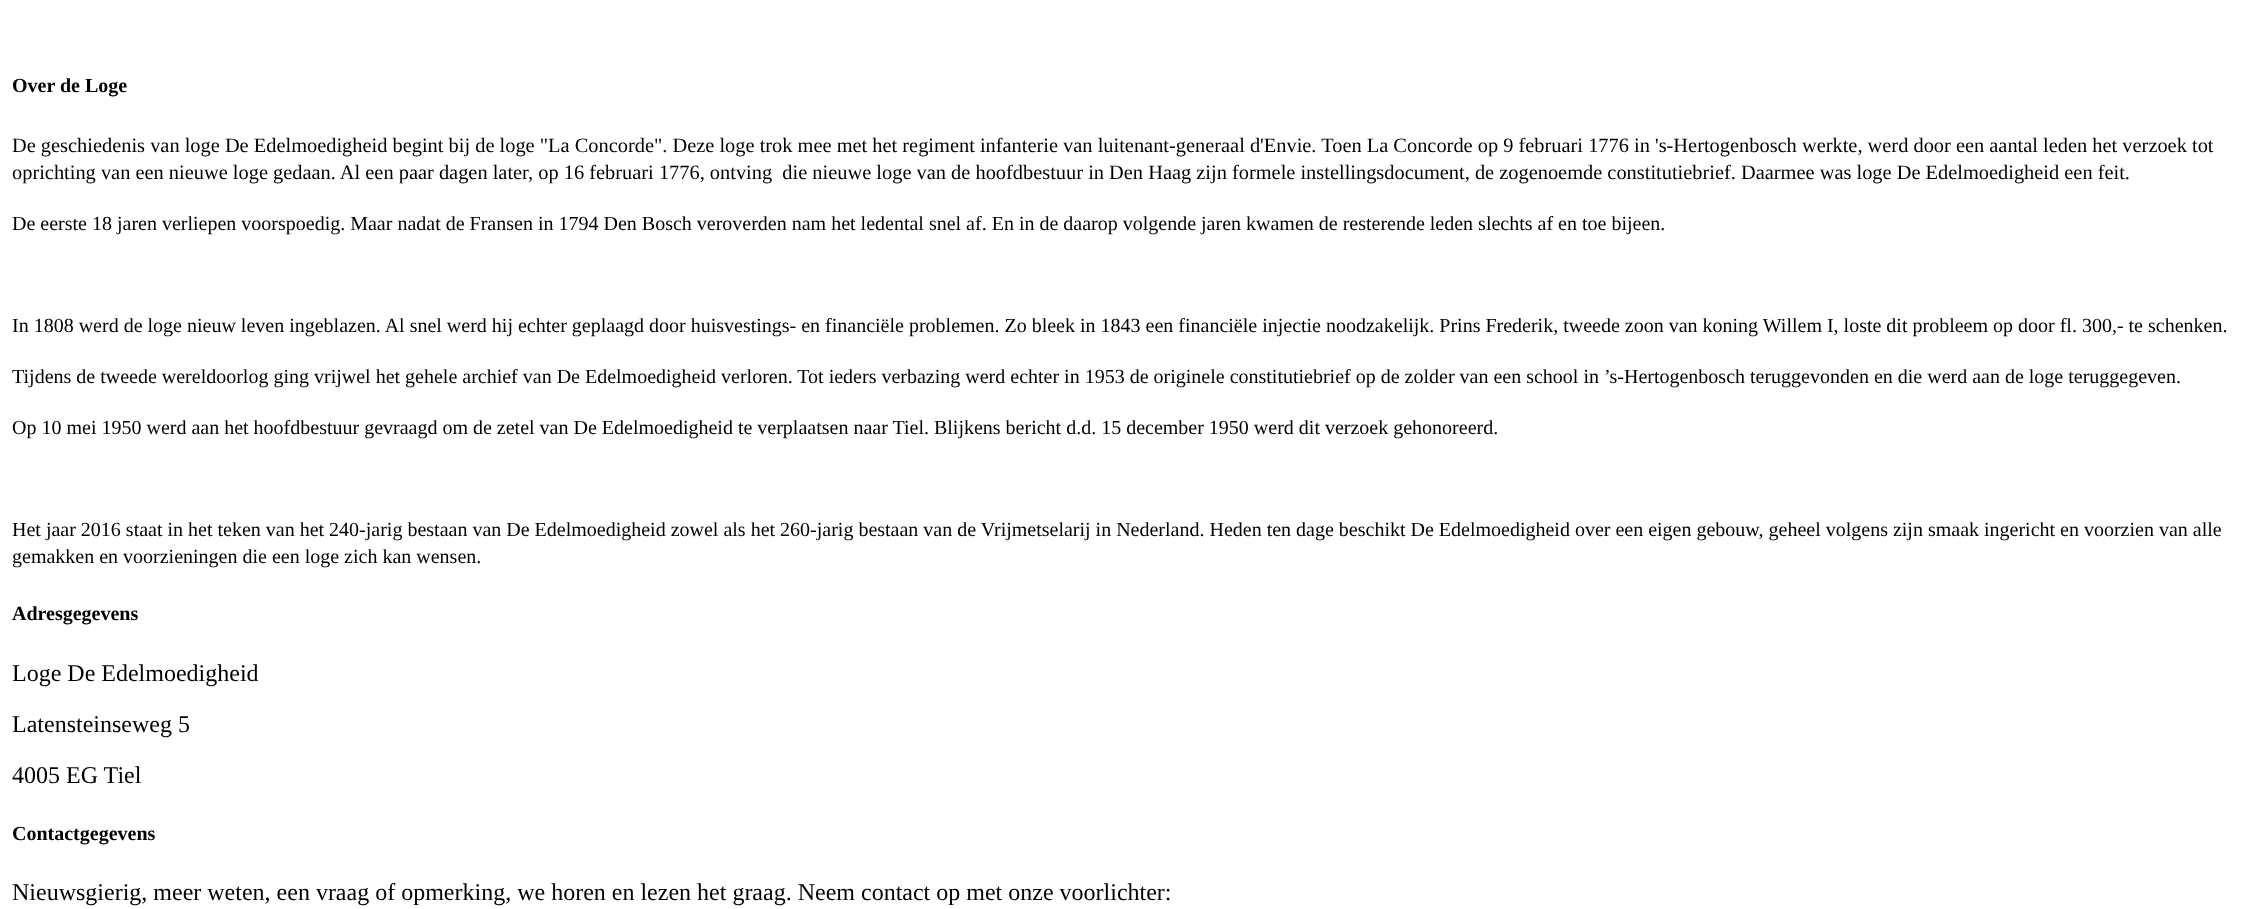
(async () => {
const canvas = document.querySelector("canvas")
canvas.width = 2241
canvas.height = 909
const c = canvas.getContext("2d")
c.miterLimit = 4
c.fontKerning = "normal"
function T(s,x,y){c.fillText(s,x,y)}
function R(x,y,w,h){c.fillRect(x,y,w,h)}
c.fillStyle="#fff"
R(0,0,2241,909)
c.font="bold 20px Liberation Serif"
c.fillStyle="#000"
T("Over de Loge",12,92)
c.font="20.4px Liberation Serif"
T("De geschiedenis van loge De Edelmoedigheid begint bij de loge \"La Concorde\". Deze loge trok mee met het regiment infanterie van luitenant-generaal d'Envie. Toen La Concorde op 9 februari 1776 in 's-Hertogenbosch werkte, werd door een aantal leden het verzoek tot",12,152)
T("oprichting van een nieuwe loge gedaan. Al een paar dagen later, op 16 februari 1776, ontving  die nieuwe loge van de hoofdbestuur in Den Haag zijn formele instellingsdocument, de zogenoemde constitutiebrief. Daarmee was loge De Edelmoedigheid een feit.",12,179)
c.font="20px Liberation Serif"
T("De eerste 18 jaren verliepen voorspoedig. Maar nadat de Fransen in 1794 Den Bosch veroverden nam het ledental snel af. En in de daarop volgende jaren kwamen de resterende leden slechts af en toe bijeen.",12,230)
T("In 1808 werd de loge nieuw leven ingeblazen. Al snel werd hij echter geplaagd door huisvestings- en financiële problemen. Zo bleek in 1843 een financiële injectie noodzakelijk. Prins Frederik, tweede zoon van koning Willem I, loste dit probleem op door fl. 300,- te schenken.",12,332)
T("Tijdens de tweede wereldoorlog ging vrijwel het gehele archief van De Edelmoedigheid verloren. Tot ieders verbazing werd echter in 1953 de originele constitutiebrief op de zolder van een school in ’s-Hertogenbosch teruggevonden en die werd aan de loge teruggegeven.",12,383)
T("Op 10 mei 1950 werd aan het hoofdbestuur gevraagd om de zetel van De Edelmoedigheid te verplaatsen naar Tiel. Blijkens bericht d.d. 15 december 1950 werd dit verzoek gehonoreerd.",12,434)
T("Het jaar 2016 staat in het teken van het 240-jarig bestaan van De Edelmoedigheid zowel als het 260-jarig bestaan van de Vrijmetselarij in Nederland. Heden ten dage beschikt De Edelmoedigheid over een eigen gebouw, geheel volgens zijn smaak ingericht en voorzien van alle",12,536)
T("gemakken en voorzieningen die een loge zich kan wensen.",12,563)
c.font="bold 20px Liberation Serif"
T("Adresgegevens",12,620)
c.font="24px Liberation Serif"
T("Loge De Edelmoedigheid",12,681)
T("Latensteinseweg 5",12,732)
T("4005 EG Tiel",12,783)
c.font="bold 20px Liberation Serif"
T("Contactgegevens",12,840)
c.font="24px Liberation Serif"
T("Nieuwsgierig, meer weten, een vraag of opmerking, we horen en lezen het graag. Neem contact op met onze voorlichter:",12,900)
})()
